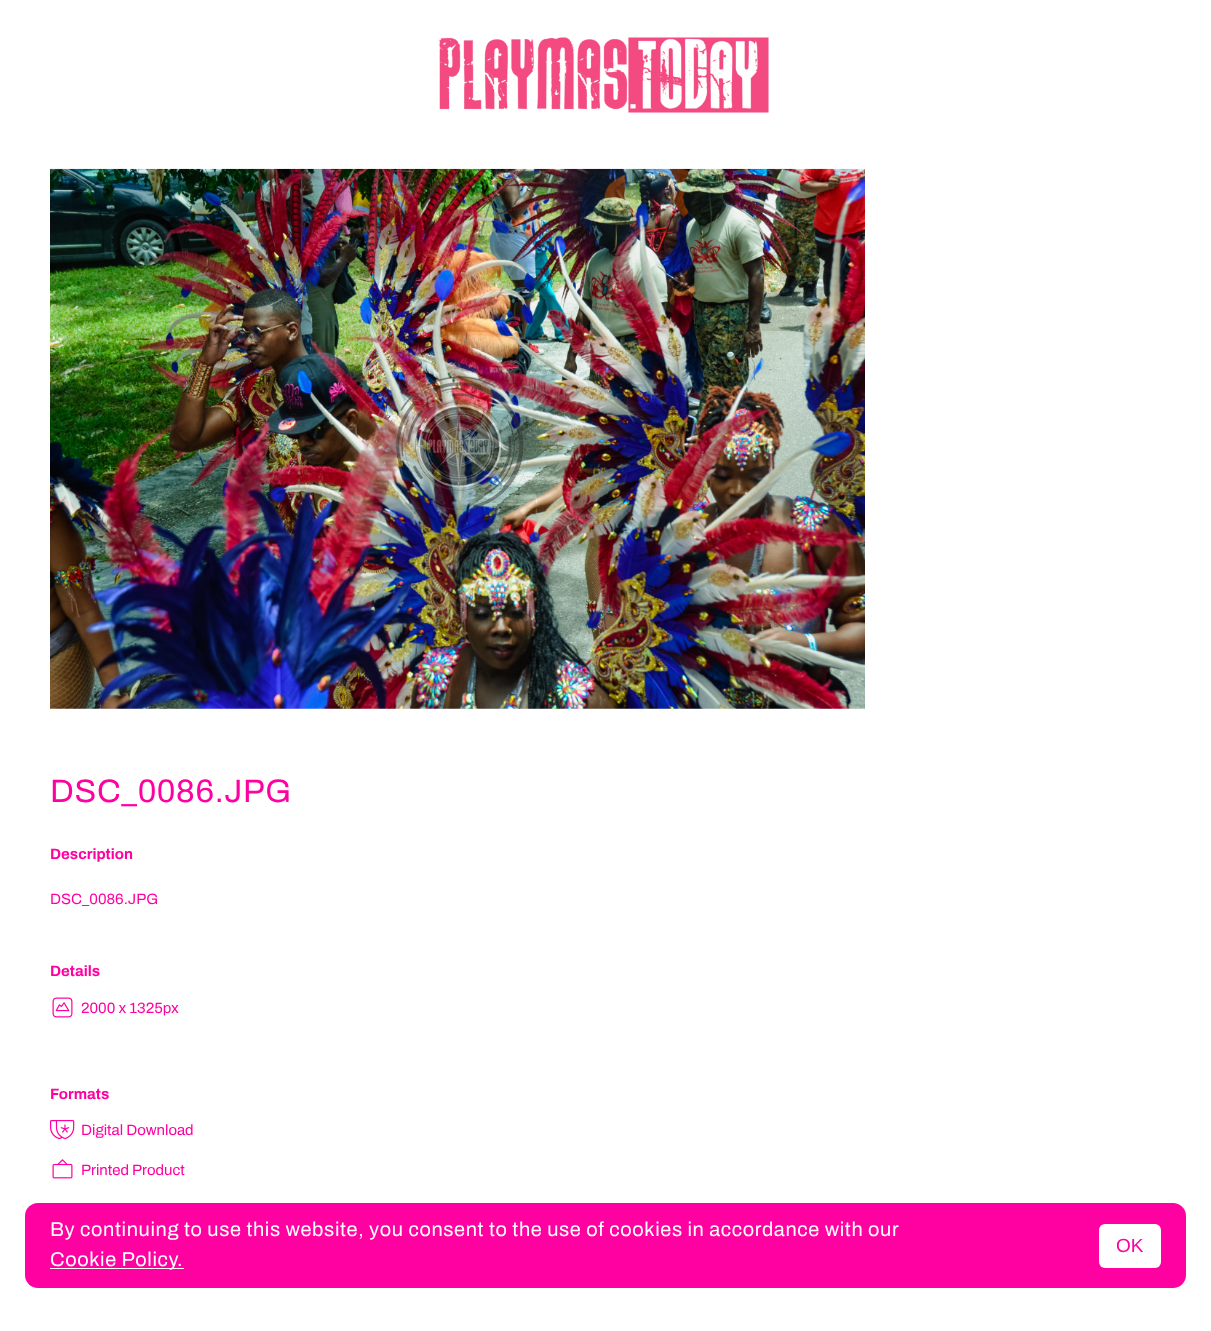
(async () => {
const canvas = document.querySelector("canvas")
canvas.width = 1211
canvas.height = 1331
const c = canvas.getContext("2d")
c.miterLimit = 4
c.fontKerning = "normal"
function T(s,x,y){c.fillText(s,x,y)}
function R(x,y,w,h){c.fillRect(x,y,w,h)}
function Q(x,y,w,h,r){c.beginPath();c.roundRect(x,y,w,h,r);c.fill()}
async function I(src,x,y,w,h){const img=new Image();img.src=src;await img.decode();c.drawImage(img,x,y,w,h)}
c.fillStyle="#fff"
R(0,0,1211,1331)
await I("1.png",438,37,331,76)
await I("2.png",50,168,815,541)
c.letterSpacing="0.62px"
c.font="32.5px Archivo"
c.fillStyle="#ff00a1"
T("DSC_0086.JPG",50,802)
c.letterSpacing="0px"
c.font="bold 15px Archivo"
T("Description",50,859)
c.font="15px Archivo"
T("DSC_0086.JPG",50,904)
c.font="bold 15px Archivo"
T("Details",50,976)
await I("3.png",52,997,21,21)
c.font="15px Archivo"
T("2000 x 1325px",81,1013)
c.font="bold 15px Archivo"
T("Formats",50,1099)
await I("4.png",50,1120,25,20)
c.font="15px Archivo"
T("Digital Download",81,1135)
await I("5.png",52,1159,21,20)
T("Printed Product",81,1175)
Q(25,1203,1161,85,13)
c.letterSpacing="0.62px"
c.font="20px Archivo"
c.fillStyle="#fff"
T("By continuing to use this website, you consent to the use of cookies in accordance with our",50,1236)
R(50,1268,134,1)
T("Cookie Policy.",50,1266)
Q(1099,1224,62,44,6)
c.letterSpacing="0px"
c.font="19px Liberation Sans"
c.fillStyle="#ff00a1"
T("OK",1116,1252)
})()
